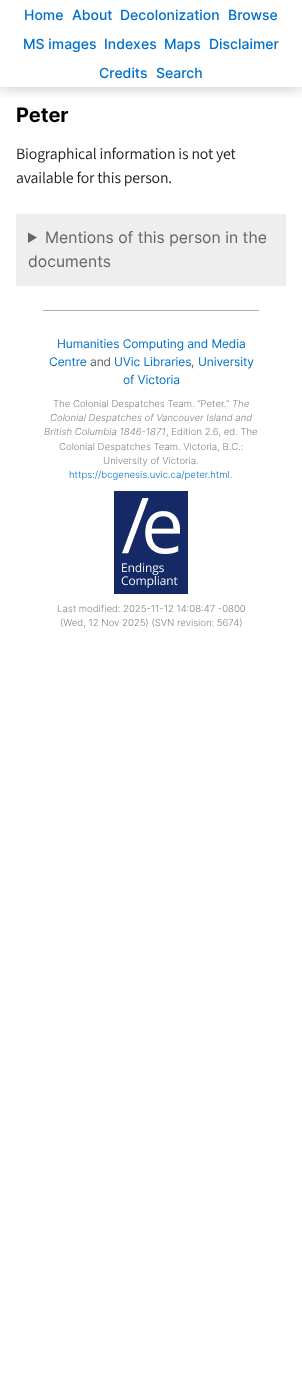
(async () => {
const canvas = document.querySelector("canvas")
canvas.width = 302
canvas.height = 1387
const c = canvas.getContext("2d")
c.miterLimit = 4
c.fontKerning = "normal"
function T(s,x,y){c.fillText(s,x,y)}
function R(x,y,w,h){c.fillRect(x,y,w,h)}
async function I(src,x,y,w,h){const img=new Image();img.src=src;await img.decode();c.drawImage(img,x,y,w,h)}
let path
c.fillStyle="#fff"
R(0,0,302,1387)
c.save()
c.beginPath()
c.rect(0,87,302,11)
c.clip()
c.fillStyle="#00000040"
c.filter="blur(7.5px)"
c.beginPath()
c.rect(0,0,302,87)
c.fill()
c.filter="none"
c.restore()
c.font="500 14px Inter"
c.fillStyle="#0070c9"
T("Home",24,20)
T("About",72,20)
T("Decolonization",120,20)
T("Browse",228,20)
T("MS images",23,49)
T("Index",104,49)
T("es",141,49)
T("Maps",164,49)
T("Disclaimer",209,49)
T("Credits",99,78)
T("Search",156,78)
c.font="bold 20px Inter"
c.fillStyle="#000"
T("Peter",16,122)
c.letterSpacing="-0.15px"
c.font="15.75px 'Source Sans 3'"
c.fillStyle="#222"
T("Biographical information is not yet",16,159)
T("available for this person.",16,183)
c.fillStyle="#eee"
R(16,214,270,72)
c.fillStyle="#666"
path = new Path2D("M28 232.5l9 5l-9 5.5z")
c.fill(path)
c.letterSpacing="0px"
c.font="15.75px Inter"
T("Mentions of this person in the",45,243)
T("documents",28,267)
c.fillStyle="#aeaeae"
R(43,310,216,1)
c.letterSpacing="-0.1px"
c.font="12px Inter"
c.fillStyle="#0070c9"
T("Humanities Computing and Media",57,348)
T("Centre",49,366)
c.fillStyle="#5d5d5d"
T("and",90,366)
c.fillStyle="#0070c9"
T("UVic Libraries",114,366)
c.fillStyle="#5d5d5d"
T(",",191,366)
c.fillStyle="#0070c9"
T("University",198,366)
T("of Victoria",123,384)
c.letterSpacing="0px"
c.font="300 9.6px Inter"
c.fillStyle="#838383"
T("The Colonial Despatches Team. “Peter.",53,407)
T("”",226,407)
c.font="italic 300 9.6px Inter"
T("The",232,407)
T("Colonial Despatches of Vancouver Island and",50,421)
T("British Columbia 1846-1871",44,435)
c.font="300 9.6px Inter"
T(", Edition 2.6, ed. The",166,435)
T("Colonial Despatches Team. Victoria, B.C.:",59,450)
T("University of Victoria.",103,464)
c.fillStyle="#0070c9"
T("https://bcgenesis.uvic.ca/peter.html",69,478)
c.fillStyle="#838383"
T(".",230,478)
await I("1.png",114,491,74,103)
T("Last modified: 2025-11-12 14:08:47 -0800",57,612)
T("(Wed, 12 Nov 2025) (SVN revision: 5674)",60,626)
})()
